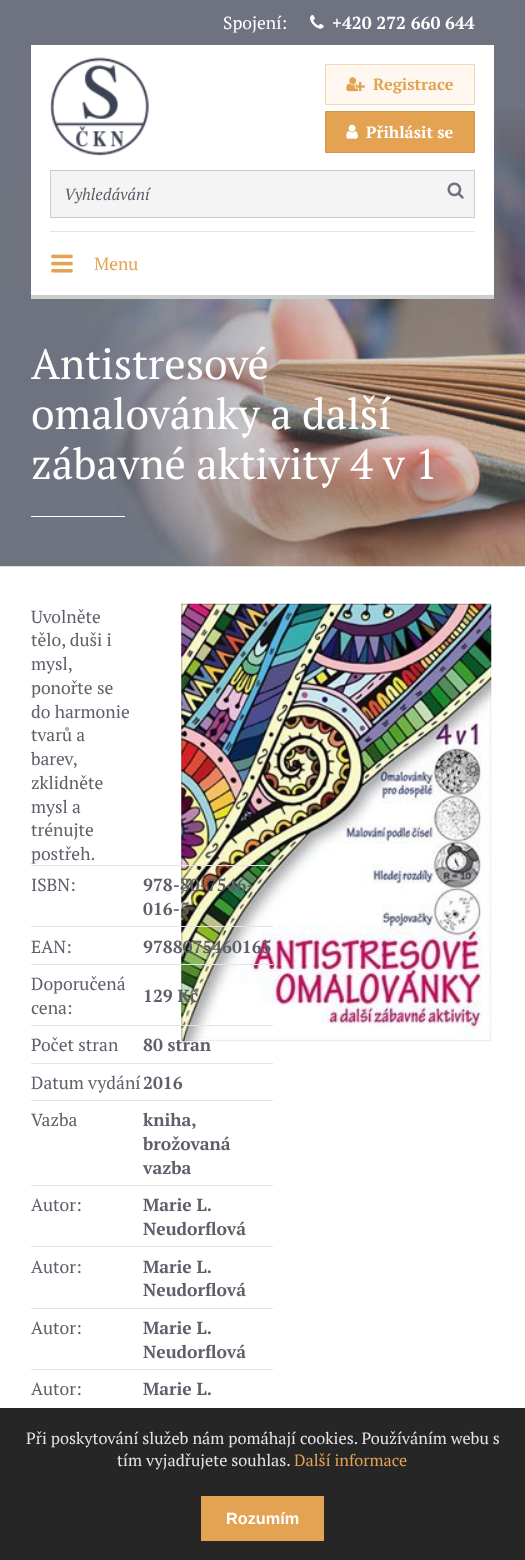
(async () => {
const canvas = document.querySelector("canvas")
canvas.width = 525
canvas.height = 1560
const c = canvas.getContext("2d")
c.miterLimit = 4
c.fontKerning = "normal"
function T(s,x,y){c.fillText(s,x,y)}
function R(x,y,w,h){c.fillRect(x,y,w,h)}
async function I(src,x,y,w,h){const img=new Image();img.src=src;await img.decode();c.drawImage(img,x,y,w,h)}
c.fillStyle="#fff"
R(0,0,525,1560)
c.fillStyle="#6f737f"
R(0,0,525,109)
await I("1.png",0,109,525,458)
c.font="17.5px PT Serif"
c.fillStyle="#fff"
T("Spojení:",223,29)
await I("2.png",310,15,14,14)
c.font="bold 17.5px PT Serif"
T("+420 272 660 644",332,29)
R(31,45,463,250)
c.fillStyle="#ccc"
R(31,295,463,4)
await I("3.png",50,57,99,99)
c.fillStyle="#fff8f0"
c.beginPath()
c.rect(325.5,64.5,149,40)
c.fill()
c.strokeStyle="#f8d9b5"
c.stroke()
await I("4.png",346,77,19,15)
c.font="bold 16.25px PT Serif"
c.fillStyle="#e4a253"
T("Registrace",373,90)
c.beginPath()
c.rect(325.5,111.5,149,41)
c.fill()
c.strokeStyle="#d2954b"
c.stroke()
await I("5.png",346,124,12,15)
c.fillStyle="#fff"
T("Přihlásit se",366,138)
c.fillStyle="#f4f4f4"
c.beginPath()
c.rect(50.5,170.5,424,47)
c.fill()
c.strokeStyle="#cbcbcb"
c.stroke()
c.font="italic 16.25px PT Serif"
c.fillStyle="#5d6069"
T("Vyhledávání",64,200)
await I("6.png",447,182,17,17)
c.fillStyle="#e4e4e4"
R(50,231,425,1)
await I("7.png",51,254,22,19)
c.font="17.5px PT Serif"
c.fillStyle="#e4a253"
T("Menu",94,270)
c.font="42.5px PT Serif"
c.fillStyle="#fff"
T("Antistresové",31,379)
T("omalovánky a další",31,429)
T("zábavné aktivity 4 v 1",31,479)
R(31,516,94,1)
c.font="17.5px PT Serif"
c.fillStyle="#5d6069"
T("Uvolněte",31,623)
T("tělo, duši i",31,646)
T("mysl,",31,670)
T("ponořte se",31,694)
T("do harmonie",31,718)
T("tvarů a",31,741)
T("barev,",31,765)
T("zklidněte",31,789)
T("mysl a",31,813)
T("trénujte",31,836)
T("postřeh.",31,860)
await I("8.png",181,603,311,439)
c.fillStyle="#e4e4e4"
R(31,865,242,1)
c.fillStyle="#5d6069"
T("ISBN:",31,891)
c.fillStyle="#e4e4e4"
R(31,926,242,1)
c.font="bold 17.5px PT Serif"
c.fillStyle="#5d6069"
T("978-80-7546-",143,891)
T("016-5",143,915)
c.font="17.5px PT Serif"
T("EAN:",31,953)
c.fillStyle="#e4e4e4"
R(31,964,242,1)
c.font="bold 17.5px PT Serif"
c.fillStyle="#5d6069"
T("9788075460165",143,953)
c.font="17.5px PT Serif"
T("Doporučená",31,990)
T("cena:",31,1014)
c.fillStyle="#e4e4e4"
R(31,1025,242,1)
c.font="bold 17.5px PT Serif"
c.fillStyle="#5d6069"
T("129 Kč",143,1002)
c.font="17.5px PT Serif"
T("Počet stran",31,1051)
c.fillStyle="#e4e4e4"
R(31,1063,242,1)
c.font="bold 17.5px PT Serif"
c.fillStyle="#5d6069"
T("80 stran",143,1051)
c.font="17.5px PT Serif"
T("Datum vydání",31,1089)
c.fillStyle="#e4e4e4"
R(31,1100,242,1)
c.font="bold 17.5px PT Serif"
c.fillStyle="#5d6069"
T("2016",143,1089)
c.font="17.5px PT Serif"
T("Vazba",31,1126)
c.fillStyle="#e4e4e4"
R(31,1185,242,1)
c.font="bold 17.5px PT Serif"
c.fillStyle="#5d6069"
T("kniha,",143,1126)
T("brožovaná",143,1150)
T("vazba",143,1174)
c.font="17.5px PT Serif"
T("Autor:",31,1211)
c.fillStyle="#e4e4e4"
R(31,1246,242,1)
c.font="bold 17.5px PT Serif"
c.fillStyle="#5d6069"
T("Marie L.",143,1211)
T("Neudorflová",143,1235)
c.font="17.5px PT Serif"
T("Autor:",31,1273)
c.fillStyle="#e4e4e4"
R(31,1308,242,1)
c.font="bold 17.5px PT Serif"
c.fillStyle="#5d6069"
T("Marie L.",143,1273)
T("Neudorflová",143,1296)
c.font="17.5px PT Serif"
T("Autor:",31,1334)
c.fillStyle="#e4e4e4"
R(31,1369,242,1)
c.font="bold 17.5px PT Serif"
c.fillStyle="#5d6069"
T("Marie L.",143,1334)
T("Neudorflová",143,1358)
c.font="17.5px PT Serif"
T("Autor:",31,1395)
c.fillStyle="#e4e4e4"
R(31,1430,242,1)
c.font="bold 17.5px PT Serif"
c.fillStyle="#5d6069"
T("Marie L.",143,1395)
c.fillStyle="#e4e4e4"
R(31,1468,242,1)
R(31,1529,170,1)
c.fillStyle="#000000d9"
R(0,1408,525,152)
c.font="16.25px PT Serif"
c.fillStyle="#e4e4e4"
T("Při poskytování služeb nám pomáhají cookies. Používáním webu s",26,1444)
T("tím vyjadřujete souhlas.",117,1466)
c.fillStyle="#e4a253"
T("Další informace",294,1466)
R(201,1496,123,45)
c.font="bold 16.25px Liberation Sans"
c.fillStyle="#fff"
T("Rozumím",226,1524)
})()
